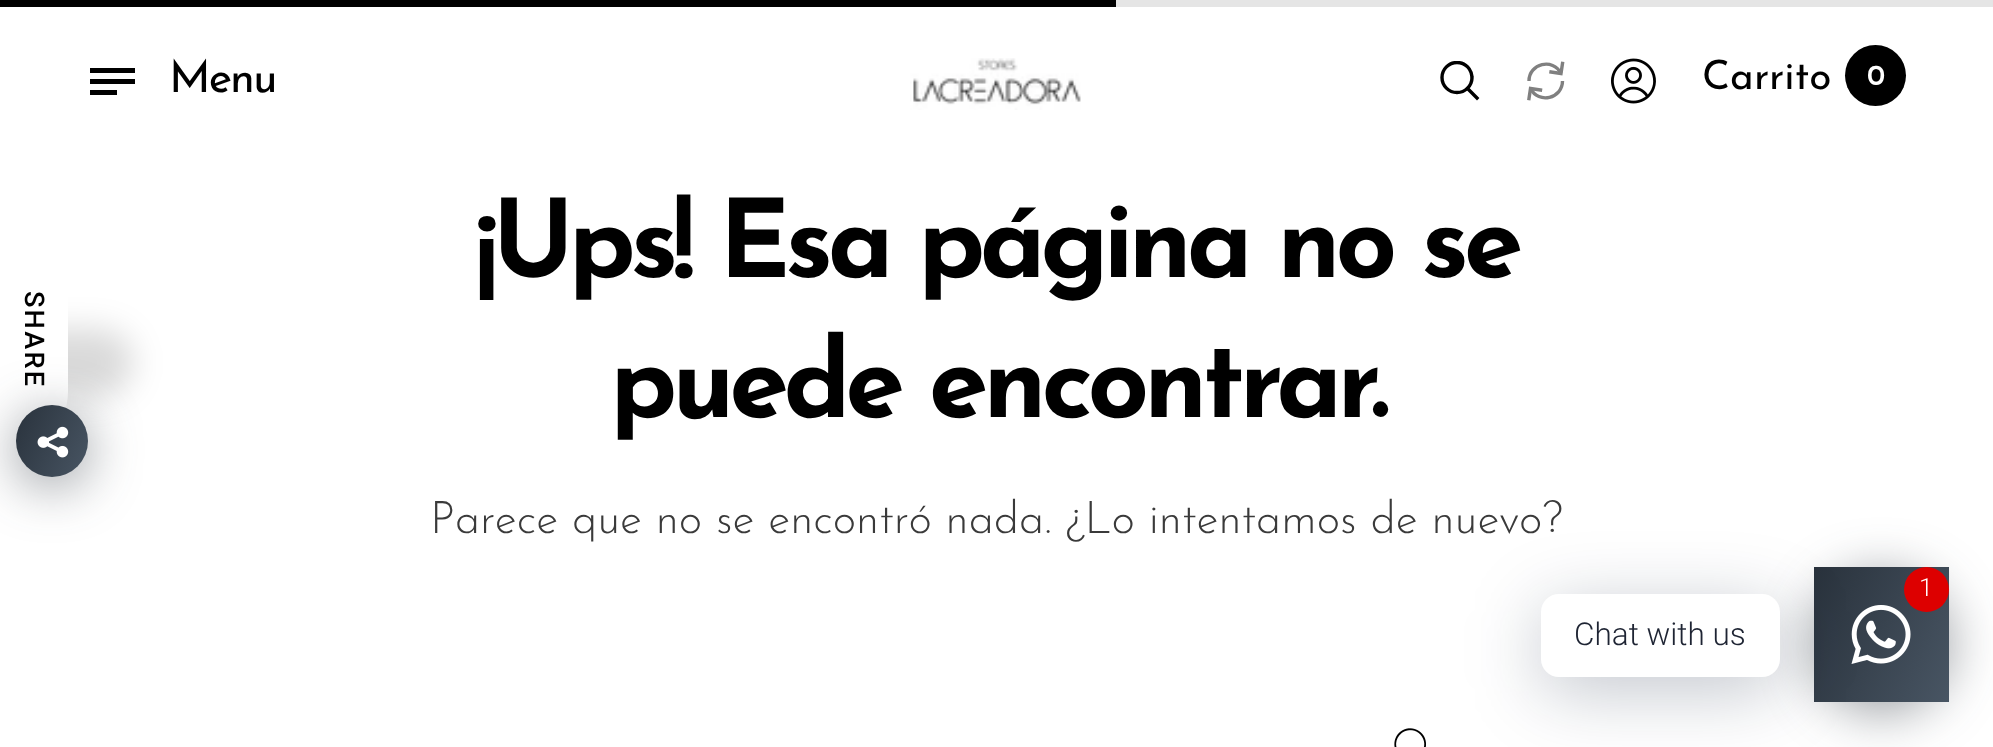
(async () => {
const canvas = document.querySelector("canvas")
canvas.width = 1993
canvas.height = 747
const c = canvas.getContext("2d")
c.miterLimit = 4
c.fontKerning = "normal"
function T(s,x,y){c.fillText(s,x,y)}
function R(x,y,w,h){c.fillRect(x,y,w,h)}
function Q(x,y,w,h,r){c.beginPath();c.roundRect(x,y,w,h,r);c.fill()}
async function I(src,x,y,w,h){const img=new Image();img.src=src;await img.decode();c.drawImage(img,x,y,w,h)}
let gradient, path
c.fillStyle="#fff"
R(0,0,1993,747)
c.fillStyle="#000"
R(0,0,1116,7)
c.fillStyle="#e5e5e5"
R(1116,0,877,7)
c.fillStyle="#000"
R(90,68,45,5)
R(90,79,45,5)
R(90,90,27,5)
c.letterSpacing="-2px"
c.font="45px Josefin Sans"
T("Menu",169,92)
await I("1.png",910,58,171,52)
path = new Path2D("M1477 98l-9.5-9.5")
c.strokeStyle="#000"
c.lineWidth=3.4
c.lineCap="square"
c.stroke(path)
c.save()
c.beginPath()
c.rect(1440,61,41,40)
c.clip()
c.beginPath()
c.arc(1457,77.5,15,0,7)
c.stroke()
c.restore()
path = new Path2D("M1529 81c0-17.5 24-23.5 32-7.5m1.5 7.5c0 17.5-24 23.5-32 7.5")
c.strokeStyle="#808080"
c.lineCap="butt"
c.stroke(path)
path = new Path2D("M1562.5 63.5l-1.5 10l-10-1.5m-22 26.5l1.5-10l10 1.5")
c.lineCap="square"
c.stroke(path)
await I("2.png",1611,58,45,46)
c.letterSpacing="0px"
c.font="40.5px Josefin Sans"
T("Carrito",1702,89)
c.beginPath()
c.arc(1875.5,75.5,30.5,0,7)
c.fill()
c.font="600 29px Josefin Sans"
c.fillStyle="#fff"
T("0",1867,85)
c.letterSpacing="-5.6px"
c.font="bold 108px Josefin Sans"
c.fillStyle="#000"
T("¡Ups! Esa página no se",476,277)
T("puede encontrar.",610,417)
c.letterSpacing="0px"
c.font="300 45px Josefin Sans"
c.fillStyle="#3a3a3a"
T("Parece que no se encontró nada. ¿Lo intentamos de nuevo?",430,533)
await I("3.png",1394,728,32,19)
c.fillStyle="#00000026"
c.filter="blur(16px)"
c.beginPath()
c.roundRect(-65,329,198,67,63)
c.fill()
c.filter="none"
c.fillStyle="#fff"
path = new Path2D("M0 455v-198h58c5 0 10 4 10 9v126c0 35-29 63-64 63z")
c.fill(path)
c.letterSpacing="2.25px"
c.font="500 27px Roboto"
c.fillStyle="#000"
c.save()
c.translate(25,291)
c.rotate(90 * Math.PI / 180)
c.fillText("SHARE",0,0)
c.restore()
c.fillStyle="#29323c80"
c.filter="blur(27px)"
c.beginPath()
c.roundRect(16,414,72,72,36)
c.fill()
c.filter="none"
gradient = c.createLinearGradient(8,421,95,461)
gradient.addColorStop(0,"#29323c")
gradient.addColorStop(1,"#485563")
c.fillStyle = gradient
c.beginPath()
c.arc(52,441,36,0,7)
c.fill()
await I("4.png",37,426,32,32)
c.fillStyle="#29323c80"
c.filter="blur(27px)"
c.beginPath()
c.roundRect(1814,576,135,135,67.5)
c.fill()
c.filter="none"
gradient = c.createLinearGradient(1800,597,1962,672)
gradient.addColorStop(0,"#29323c")
gradient.addColorStop(1,"#485563")
c.fillStyle = gradient
R(1814,567,135,135)
c.fillStyle="#00122e3d"
c.filter="blur(36px)"
c.beginPath()
c.roundRect(1541,608,239,83,18)
c.fill()
c.filter="none"
await I("5.png",1851,605,60,59)
c.fillStyle="#d00"
c.beginPath()
c.arc(1926.5,589.5,22.5,0,7)
c.fill()
c.letterSpacing="0px"
c.font="300 25px Roboto"
c.fillStyle="#fff"
T("1",1919,596)
Q(1541,594,239,83,18)
c.font="300 31.5px Roboto"
c.fillStyle="#1e2433"
T("Chat with us",1574,645)
})()
